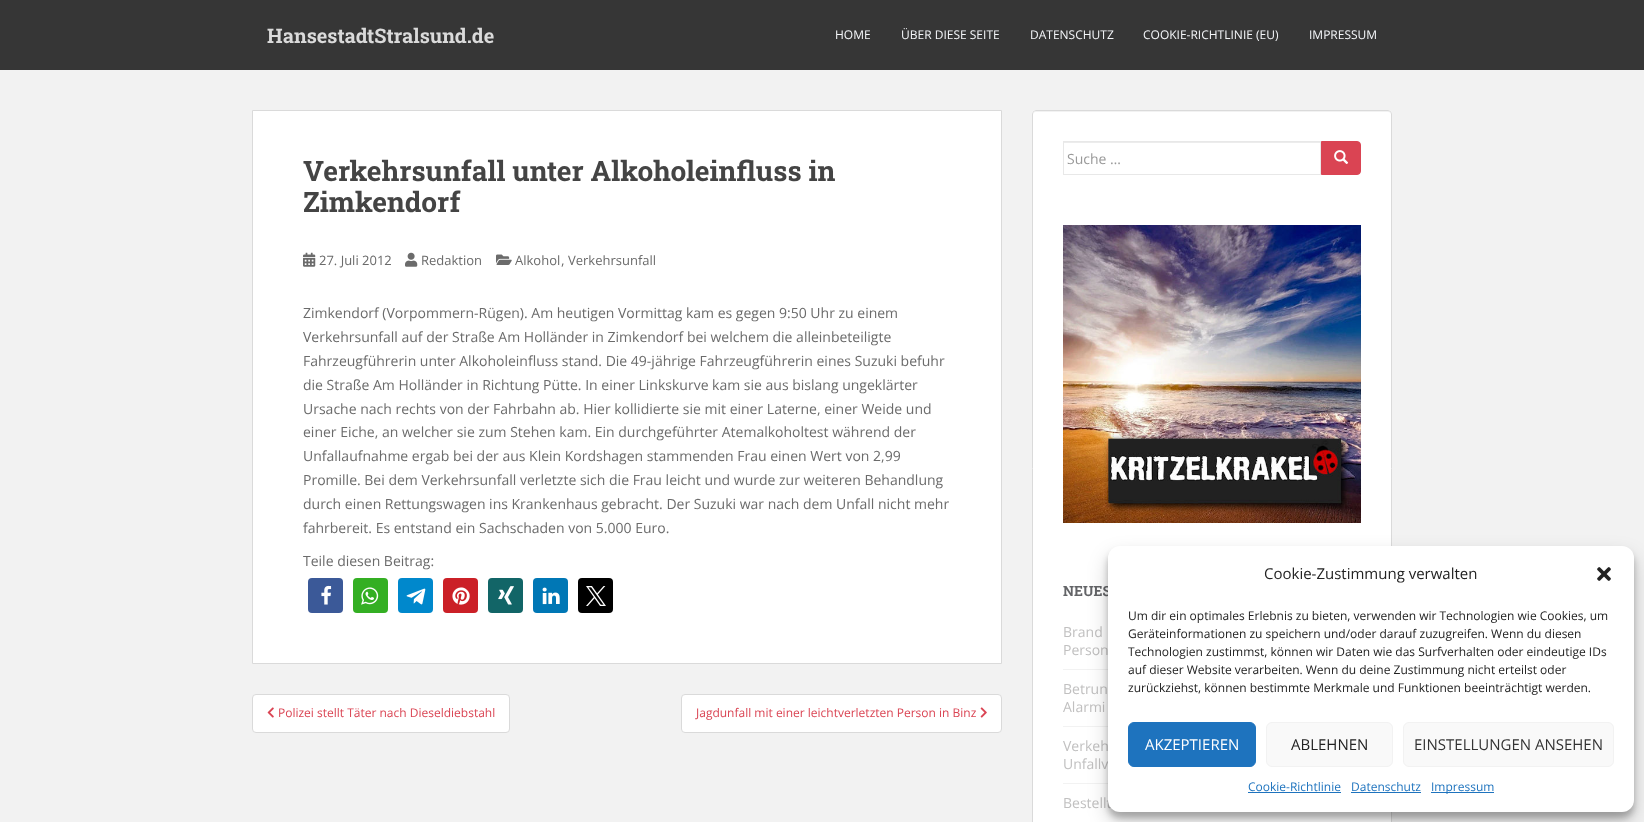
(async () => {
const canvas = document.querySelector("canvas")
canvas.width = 1644
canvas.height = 822
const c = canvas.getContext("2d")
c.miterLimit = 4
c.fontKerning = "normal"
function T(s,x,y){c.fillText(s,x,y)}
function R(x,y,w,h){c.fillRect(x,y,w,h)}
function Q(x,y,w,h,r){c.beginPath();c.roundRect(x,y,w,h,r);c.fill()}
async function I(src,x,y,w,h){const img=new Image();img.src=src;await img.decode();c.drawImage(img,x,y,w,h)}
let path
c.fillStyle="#f2f2f2"
R(0,0,1644,822)
c.fillStyle="#363636"
R(0,0,1644,70)
c.font="bold 20px Roboto Slab"
c.fillStyle="#dadada"
T("HansestadtStralsund.de",267,43)
c.font="12px Open Sans"
c.fillStyle="#f5f7fa"
T("HOME",835,39)
T("ÜBER DIESE SEITE",901,39)
T("DATENSCHUTZ",1030,39)
T("COOKIE-RICHTLINIE (EU)",1143,39)
T("IMPRESSUM",1309,39)
c.fillStyle="#fff"
c.beginPath()
c.rect(252.5,110.5,749,553)
c.fill()
c.strokeStyle="#dadada"
c.stroke()
c.font="bold 28px Roboto Slab"
c.fillStyle="#444"
T("Verkehrsunfall unter Alkoholeinfluss in",303,181)
T("Zimkendorf",303,212)
await I("1.png",303,252,13,15)
c.font="13px Open Sans"
c.fillStyle="#6b6b6b"
T("27. Juli 2012",319,265)
await I("2.png",405,252,13,15)
T("Redaktion",421,265)
await I("3.png",496,254,16,11)
T("Alkohol",515,265)
c.font="14px Open Sans"
T(",",561,265)
c.font="13px Open Sans"
T("Verkehrsunfall",568,265)
c.font="14px Open Sans"
T("Zimkendorf (Vorpommern-Rügen). Am heutigen Vormittag kam es gegen 9:50 Uhr zu einem",303,318)
T("Verkehrsunfall auf der Straße Am Holländer in Zimkendorf bei welchem die alleinbeteiligte",303,342)
T("Fahrzeugführerin unter Alkoholeinfluss stand. Die 49-jährige Fahrzeugführerin eines Suzuki befuhr",303,366)
T("die Straße Am Holländer in Richtung Pütte. In einer Linkskurve kam sie aus bislang ungeklärter",303,390)
T("Ursache nach rechts von der Fahrbahn ab. Hier kollidierte sie mit einer Laterne, einer Weide und",303,414)
T("einer Eiche, an welcher sie zum Stehen kam. Ein durchgeführter Atemalkoholtest während der",303,437)
T("Unfallaufnahme ergab bei der aus Klein Kordshagen stammenden Frau einen Wert von 2,99",303,461)
T("Promille. Bei dem Verkehrsunfall verletzte sich die Frau leicht und wurde zur weiteren Behandlung",303,485)
T("durch einen Rettungswagen ins Krankenhaus gebracht. Der Suzuki war nach dem Unfall nicht mehr",303,509)
T("fahrbereit. Es entstand ein Sachschaden von 5.000 Euro.",303,533)
T("Teile diesen Beitrag:",303,566)
c.fillStyle="#3b5998"
Q(308,578,35,35,4)
await I("4.png",321,585,11,20)
c.fillStyle="#34af23"
Q(353,578,35,35,4)
await I("5.png",361,587,18,18)
c.fillStyle="#08c"
Q(398,578,35,35,4)
await I("6.png",406,588,20,17)
c.fillStyle="#cb2027"
Q(443,578,35,35,4)
await I("7.png",452,587,18,18)
c.fillStyle="#126567"
Q(488,578,35,35,4)
await I("8.png",498,586,16,19)
c.fillStyle="#0077b5"
Q(533,578,35,35,4)
await I("9.png",542,587,18,18)
c.fillStyle="#000"
Q(578,578,35,35,4)
await I("10.png",586,586,20,20)
c.fillStyle="#fff"
c.beginPath()
c.roundRect(252.5,694.5,257,38,3.5)
c.fill()
c.stroke()
await I("11.png",267,707,7,11)
c.font="12px Open Sans"
c.fillStyle="#da4453"
T("Polizei stellt Täter nach Dieseldiebstahl",278,717)
c.fillStyle="#fff"
c.beginPath()
c.roundRect(681.5,694.5,320,38,3.5)
c.fill()
c.stroke()
c.fillStyle="#da4453"
T("Jagdunfall mit einer leichtverletzten Person in Binz",696,717)
await I("12.png",980,707,7,11)
c.fillStyle="#fff"
Q(1032,110,360,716,4)
c.fillStyle="#f2f2f2"
path = new Path2D("M1036 112h352c2 0 3 1 3 3c0-2-1-4-3-4h-352l-2 1l-1 3c0-2 1-3 3-3z")
c.fill(path)
c.beginPath()
c.roundRect(1032.5,110.5,359,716,3.5)
c.stroke()
c.fillStyle="#ececec"
R(1064,142,256,1)
c.strokeStyle="#e8e8e8"
c.strokeRect(1063.5,141.5,257,33)
c.font="14px Open Sans"
c.fillStyle="#999"
T("Suche …",1067,164)
c.fillStyle="#da4453"
c.beginPath()
c.roundRect(1321.5,141.5,39,33,[0,3.5,3.5,0])
c.fill()
c.strokeStyle="#da4453"
c.stroke()
await I("13.png",1334,150,15,14)
await I("14.png",1063,225,298,298)
c.font="bold 14px Roboto Slab"
c.fillStyle="#636467"
T("NEUES",1063,596)
c.fillStyle="#f2f2f2"
R(1063,669,45,1)
c.font="14px Open Sans"
c.fillStyle="#c1c0c0"
T("Brand",1063,637)
T("Person",1063,655)
c.fillStyle="#f2f2f2"
R(1063,726,45,1)
c.fillStyle="#c1c0c0"
T("Betrun",1063,694)
T("Alarmi",1063,712)
c.fillStyle="#f2f2f2"
R(1063,783,45,1)
c.fillStyle="#c1c0c0"
T("Verkeh",1063,751)
T("Unfallv",1063,769)
T("Bestellt",1063,808)
c.fillStyle="#0000003b"
c.filter="blur(3px)"
c.beginPath()
c.roundRect(1108,552,526,266,12)
c.fill()
c.filter="none"
c.fillStyle="#00000030"
c.filter="blur(10px)"
c.beginPath()
c.roundRect(1108,556,526,266,12)
c.fill()
c.filter="none"
c.fillStyle="#fff"
Q(1108,546,526,266,12)
c.font="15px Open Sans"
c.fillStyle="#222"
T("Cookie-Zustimmung verwalten",1264,579)
await I("15.png",1597,567,14,14)
c.font="12px Open Sans"
T("Um dir ein optimales Erlebnis zu bieten, verwenden wir Technologien wie Cookies, um",1128,620)
T("Geräteinformationen zu speichern und/oder darauf zuzugreifen. Wenn du diesen",1128,638)
T("Technologien zustimmst, können wir Daten wie das Surfverhalten oder eindeutige IDs",1128,656)
T("auf dieser Website verarbeiten. Wenn du deine Zustimmung nicht erteilst oder",1128,674)
T("zurückziehst, können bestimmte Merkmale und Funktionen beeinträchtigt werden.",1128,692)
c.fillStyle="#1e73be"
c.beginPath()
c.roundRect(1128.5,722.5,127,44,5.5)
c.fill()
c.strokeStyle="#1e73be"
c.stroke()
c.font="15px Open Sans"
c.fillStyle="#fff"
T("AKZEPTIEREN",1145,750)
c.fillStyle="#f9f9f9"
c.beginPath()
c.roundRect(1266.5,722.5,126,44,5.5)
c.fill()
c.strokeStyle="#f2f2f2"
c.stroke()
c.fillStyle="#222"
T("ABLEHNEN",1291,750)
c.fillStyle="#f9f9f9"
c.beginPath()
c.roundRect(1403.5,722.5,210,44,5.5)
c.fill()
c.stroke()
c.fillStyle="#333"
T("EINSTELLUNGEN ANSEHEN",1414,750)
c.font="12px Open Sans"
c.fillStyle="#1e73be"
T("Cookie-Richtlinie",1248,791)
R(1248,792,93,1)
T("Datenschutz",1351,791)
R(1351,792,70,1)
R(1431,792,63,1)
T("Impressum",1431,791)
})()
